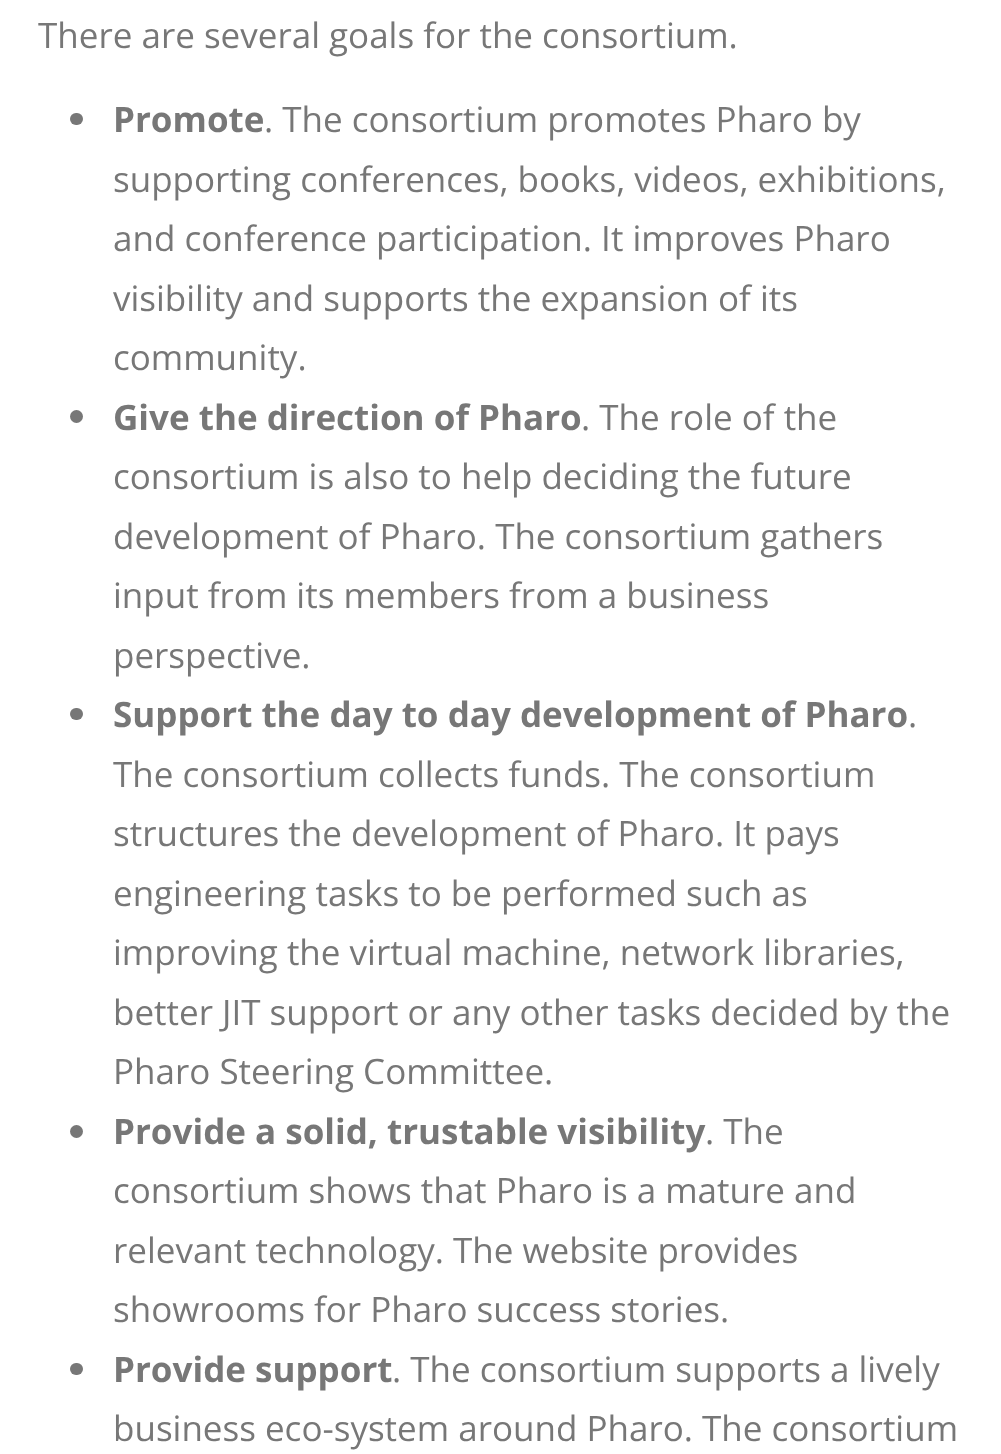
(async () => {
const canvas = document.querySelector("canvas")
canvas.width = 1001
canvas.height = 1454
const c = canvas.getContext("2d")
c.miterLimit = 4
c.fontKerning = "normal"
function T(s,x,y){c.fillText(s,x,y)}
function R(x,y,w,h){c.fillRect(x,y,w,h)}
function Q(x,y,w,h,r){c.beginPath();c.roundRect(x,y,w,h,r);c.fill()}
c.fillStyle="#fff"
R(0,0,1001,1454)
c.font="35px Open Sans"
c.fillStyle="#777"
T("There are several goals for the consortium.",38,48)
Q(70,113,13,12,6)
c.font="bold 35px Open Sans"
T("Promote",113,132)
c.font="35px Open Sans"
T(". The consortium promotes Pharo by",264,132)
T("supporting conferences, books, videos, exhibitions,",113,192)
T("and conference participation. It improves Pharo",113,251)
T("visibility and supports the expansion of its",113,311)
T("community.",113,370)
c.beginPath()
c.arc(76.5,416.5,6.5,0,7)
c.fill()
c.font="bold 35px Open Sans"
T("Give the direction of Pharo",113,430)
c.font="35px Open Sans"
T(". The role of the",581,430)
T("consortium is also to help deciding the future",113,489)
T("development of Pharo. The consortium gathers",113,549)
T("input from its members from a business",113,608)
T("perspective.",113,668)
Q(70,708,13,12,6)
c.font="bold 35px Open Sans"
T("Support the day to day development of Pharo",113,727)
c.font="35px Open Sans"
T(".",908,727)
T("The consortium collects funds. The consortium",113,787)
T("structures the development of Pharo. It pays",113,846)
T("engineering tasks to be performed such as",113,906)
T("improving the virtual machine, network libraries,",113,965)
T("better JIT support or any other tasks decided by the",113,1025)
T("Pharo Steering Committee.",113,1084)
c.beginPath()
c.arc(76.5,1131.5,6.5,0,7)
c.fill()
c.font="bold 35px Open Sans"
T("Provide a solid, trustable visibility",113,1144)
c.font="35px Open Sans"
T(". The",705,1144)
T("consortium shows that Pharo is a mature and",113,1203)
T("relevant technology. The website provides",113,1263)
T("showrooms for Pharo success stories.",113,1322)
Q(70,1363,13,12,6)
c.font="bold 35px Open Sans"
T("Provide support",113,1382)
c.font="35px Open Sans"
T(". The consortium supports a lively",392,1382)
T("business eco-system around Pharo. The consortium",113,1441)
})()
